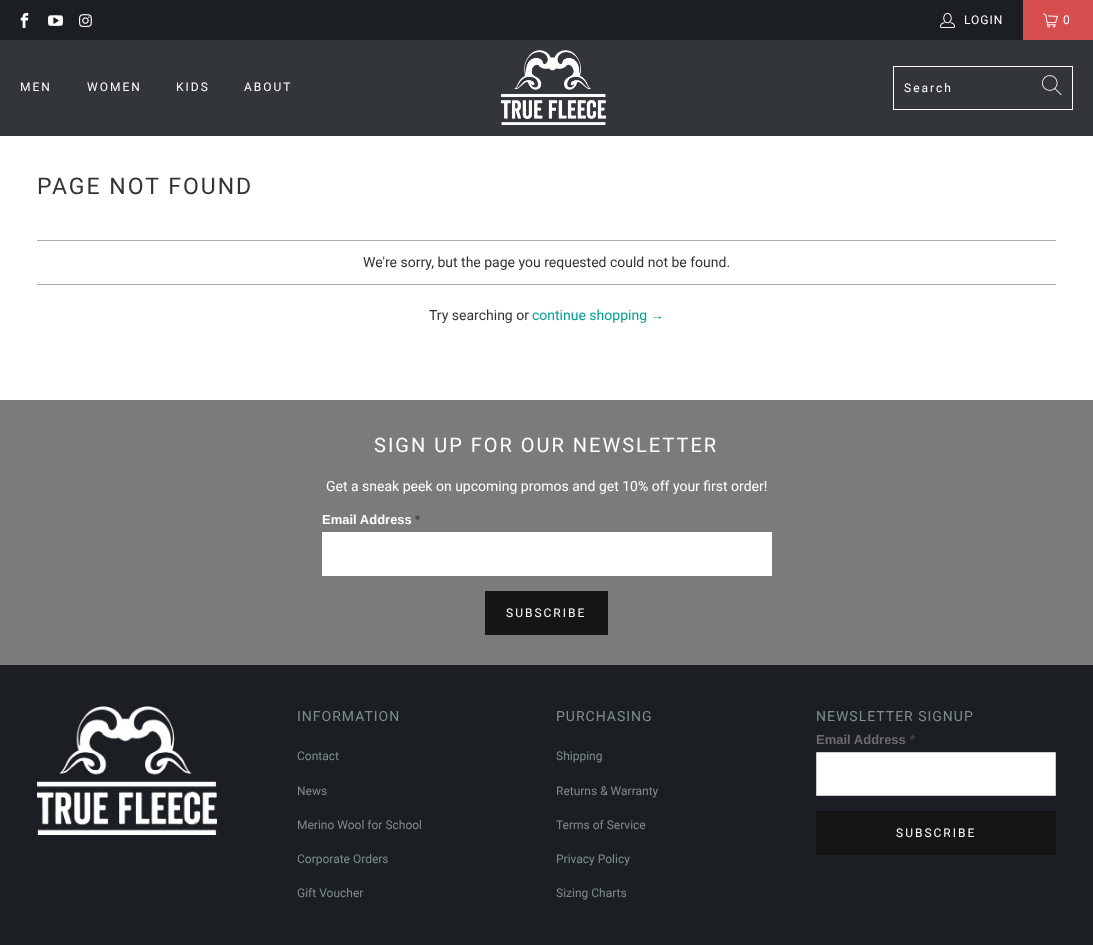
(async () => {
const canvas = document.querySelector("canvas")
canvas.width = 1093
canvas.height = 945
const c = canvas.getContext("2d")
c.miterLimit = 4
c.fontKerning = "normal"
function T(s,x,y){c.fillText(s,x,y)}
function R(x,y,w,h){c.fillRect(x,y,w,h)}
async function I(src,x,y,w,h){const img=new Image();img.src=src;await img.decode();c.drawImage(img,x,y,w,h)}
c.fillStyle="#fff"
R(0,0,1093,945)
c.fillStyle="#1b1f23"
R(0,0,1023,40)
await I("1.png",20,12,9,16)
await I("2.png",48,15,15,11)
await I("3.png",79,14,13,13)
await I("4.png",940,12,15,16)
c.letterSpacing="1px"
c.font="12px Roboto"
c.fillStyle="#fff"
T("LOGIN",964,24)
c.fillStyle="#d54d4d"
R(1023,0,70,40)
await I("5.png",1043,13,15,15)
c.fillStyle="#fff"
T("0",1063,24)
c.fillStyle="#323539"
R(0,40,1093,96)
c.letterSpacing="2px"
c.fillStyle="#fff"
T("MEN",20,91)
T("WOMEN",87,91)
T("KIDS",176,91)
T("ABOUT",244,91)
await I("6.png",501,50,105,75)
c.strokeStyle="#fff"
c.strokeRect(893.5,66.5,179,43)
T("Search",904,92)
await I("7.png",1042,75,20,21)
c.font="23px Roboto"
c.fillStyle="#333"
T("PAGE NOT FOUND",37,194)
c.fillStyle="#aaa"
R(37,240,1019,1)
R(37,284,1019,1)
c.letterSpacing="0px"
c.font="14px Roboto"
c.fillStyle="#333"
T("We're sorry, but the page you requested could not be found.",363,267)
T("Try searching or",429,320)
c.fillStyle="#03a196"
T("continue shopping",532,320)
c.font="14px Liberation Sans"
T("→",650,320)
c.fillStyle="#7c7b7b"
R(0,400,1093,265)
c.letterSpacing="2px"
c.font="20px Roboto"
c.fillStyle="#fff"
T("SIGN UP FOR OUR NEWSLETTER",374,452)
c.letterSpacing="0px"
c.font="14px Roboto"
T("Get a sneak peek on upcoming promos and get 10% off your first order!",326,491)
c.font="bold 13px Liberation Sans"
T("Email Address",322,524)
c.fillStyle="#444"
T("*",415,524)
c.fillStyle="#fff"
R(322,532,450,44)
c.fillStyle="#151515"
R(485,591,123,44)
c.letterSpacing="2px"
c.font="12px Roboto"
c.fillStyle="#fff"
T("SUBSCRIBE",506,617)
c.fillStyle="#1b1f23"
R(0,665,1093,280)
await I("8.png",37,706,180,129)
c.letterSpacing="1px"
c.font="14px Roboto"
c.fillStyle="#7f8c8d"
T("INFORMATION",297,721)
c.letterSpacing="0px"
c.font="12px Roboto"
T("Contact",297,760)
T("News",297,795)
T("Merino Wool for School",297,829)
T("Corporate Orders",297,863)
T("Gift Voucher",297,897)
c.letterSpacing="1px"
c.font="14px Roboto"
T("PURCHASING",556,721)
c.letterSpacing="0px"
c.font="12px Roboto"
T("Shipping",556,760)
T("Returns & Warranty",556,795)
T("Terms of Service",556,829)
T("Privacy Policy",556,863)
T("Sizing Charts",556,897)
c.letterSpacing="1px"
c.font="14px Roboto"
T("NEWSLETTER SIGNUP",816,721)
c.letterSpacing="0px"
c.font="bold 13px Liberation Sans"
c.fillStyle="#6b6b6b"
T("Email Address",816,744)
c.fillStyle="#444"
T("*",910,744)
c.fillStyle="#fff"
c.beginPath()
c.rect(816.5,752.5,239,43)
c.fill()
c.strokeStyle="#ccc"
c.stroke()
c.fillStyle="#151515"
R(816,811,240,44)
c.letterSpacing="2px"
c.font="12px Roboto"
c.fillStyle="#fff"
T("SUBSCRIBE",896,837)
})()
